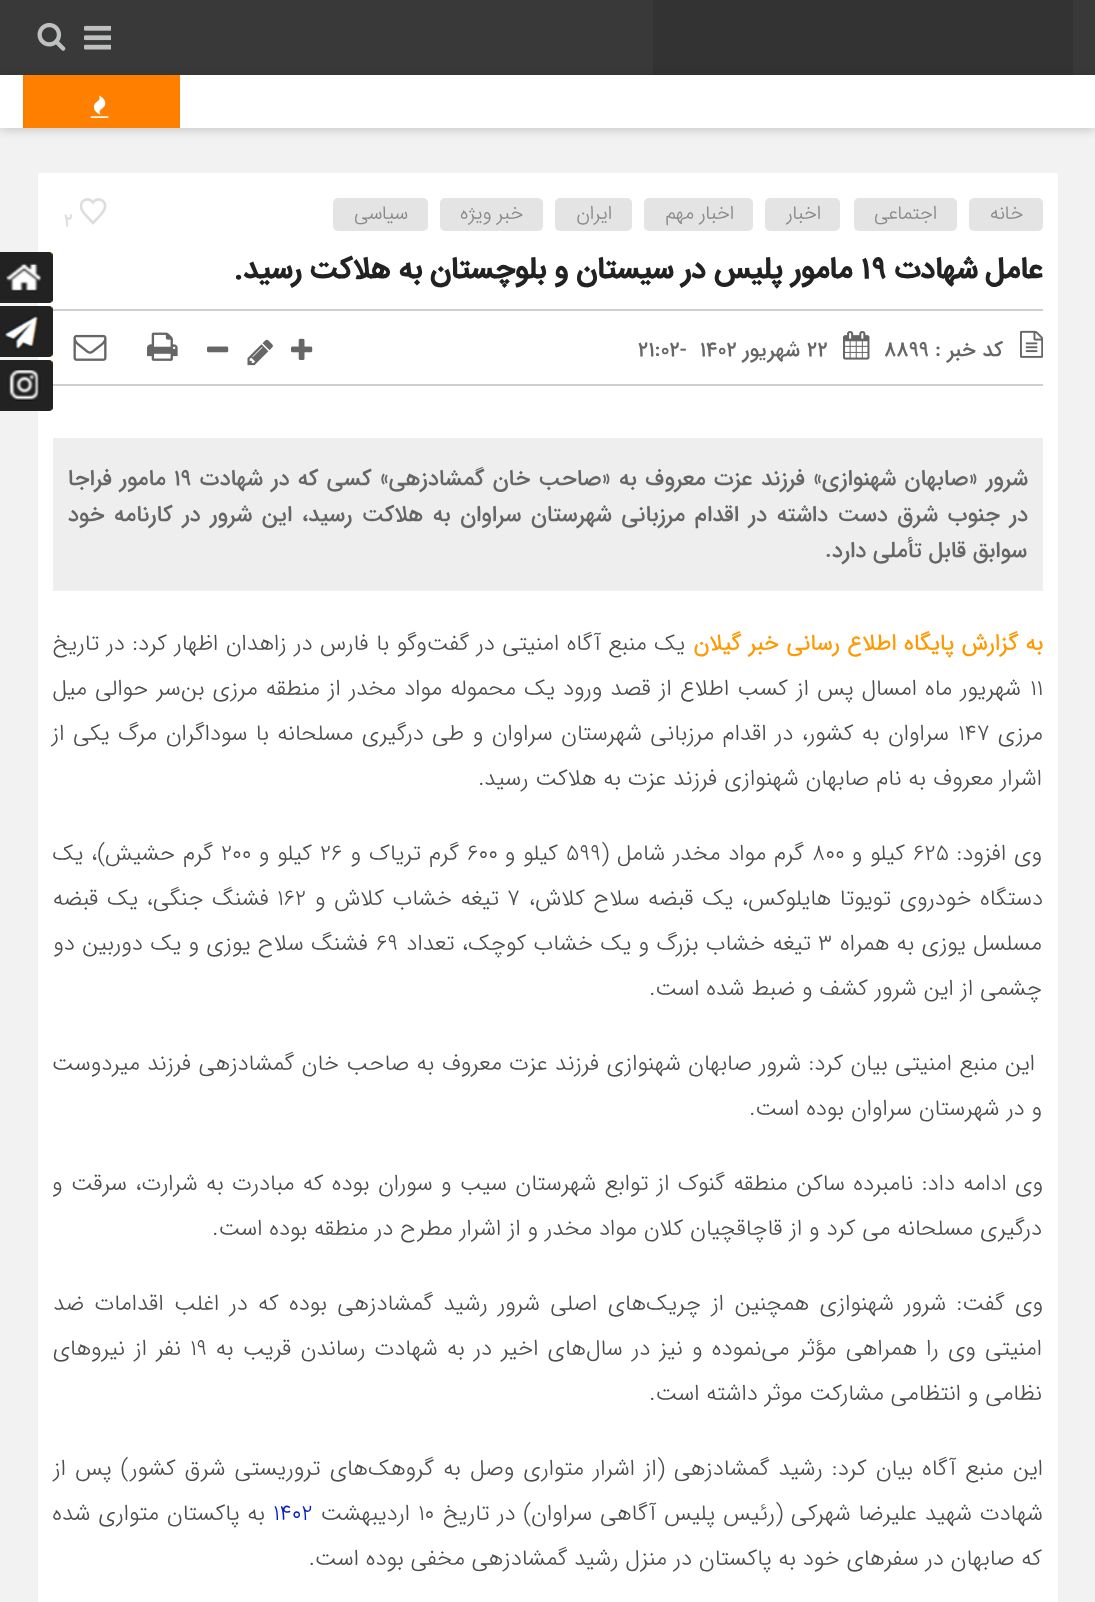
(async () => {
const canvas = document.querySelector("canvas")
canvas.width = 1095
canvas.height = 1602
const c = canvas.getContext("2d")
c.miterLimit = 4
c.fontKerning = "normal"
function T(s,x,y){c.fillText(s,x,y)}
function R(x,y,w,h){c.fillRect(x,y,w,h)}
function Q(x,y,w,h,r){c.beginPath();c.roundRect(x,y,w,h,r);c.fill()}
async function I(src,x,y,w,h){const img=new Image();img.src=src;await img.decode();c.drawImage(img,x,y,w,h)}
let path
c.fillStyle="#f2f2f2"
R(0,0,1095,1602)
c.fillStyle="#0000001a"
c.filter="blur(6px)"
c.beginPath()
c.rect(0,2,1095,127)
c.fill()
c.filter="none"
c.fillStyle="#393939"
R(0,0,1095,75)
c.fillStyle="#333"
R(653,0,420,75)
await I("1.png",84,25,27,25)
await I("2.png",37,22,29,29)
c.fillStyle="#0000001a"
c.filter="blur(6px)"
c.beginPath()
c.rect(0,77,1095,52)
c.fill()
c.filter="none"
c.fillStyle="#fff"
R(0,75,1095,53)
c.fillStyle="#ff8000"
R(25,75,155,53)
c.fillStyle="#f77c00"
R(23,75,2,53)
await I("3.png",90,95,19,23)
c.fillStyle="#fff"
R(38,173,1020,1429)
c.fillStyle="#e4e4e4"
Q(969,198,74,33,5)
c.direction="rtl"
c.font="300 19.5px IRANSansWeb"
c.fillStyle="#888"
T("خانه",1023,219)
c.fillStyle="#e4e4e4"
Q(854,198,103,33,5)
c.fillStyle="#888"
T("اجتماعی",937,219)
c.fillStyle="#e4e4e4"
Q(765,198,75,33,5)
c.fillStyle="#888"
T("اخبار",821,219)
c.fillStyle="#e4e4e4"
Q(644,198,109,33,5)
c.fillStyle="#888"
T("اخبار مهم",734,219)
c.fillStyle="#e4e4e4"
Q(555,198,77,33,5)
c.fillStyle="#888"
T("ایران",612,219)
c.fillStyle="#e4e4e4"
Q(440,198,103,33,5)
c.fillStyle="#888"
T("خبر ویژه",523,219)
c.fillStyle="#e4e4e4"
Q(333,198,95,33,5)
c.fillStyle="#888"
T("سیاسی",408,219)
await I("4.png",80,198,27,27)
c.direction="ltr"
c.font="500 18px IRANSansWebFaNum"
c.fillStyle="#ddd"
T("2",64,226)
c.direction="rtl"
c.font="bold 30px IRANSansWeb"
c.fillStyle="#222"
T("عامل شهادت",1042,278)
c.direction="ltr"
T("۱۹",861,278)
c.direction="rtl"
T("مامور پلیس در سیستان و بلوچستان به هلاکت رسید.",852,278)
c.fillStyle="#cfcfcf"
R(53,309,990,2)
R(53,384,990,2)
await I("5.png",1020,330,23,28)
c.font="500 21px IRANSansWebFaNum"
c.fillStyle="#666"
T("کد خبر :",1003,356)
c.direction="ltr"
T("8899",884,356)
await I("6.png",843,331,27,29)
T("۲۲",807,356)
c.direction="rtl"
T("شهریور",800,356)
c.direction="ltr"
T("۱۴۰۲",700,356)
T("۲۱:۰۲-",638,356)
await I("7.png",291,338,22,22)
await I("8.png",247,339,26,27)
await I("9.png",207,346,22,7)
await I("10.png",147,332,31,29)
await I("11.png",73,334,34,27)
c.fillStyle="#eee"
R(53,438,990,153)
c.wordSpacing="1.5px"
c.direction="rtl"
c.font="500 22.5px IRANSansWebFaNum"
c.fillStyle="#666"
T("شرور «صابهان شهنوازی» فرزند عزت معروف به «صاحب خان گمشادزهی» کسی که در شهادت",1028,485)
c.wordSpacing="0px"
c.direction="ltr"
T("۱۹",174,485)
c.wordSpacing="1px"
c.direction="rtl"
T("مامور فراجا",166,485)
c.wordSpacing="2.9px"
T("در جنوب شرق دست داشته در اقدام مرزبانی شهرستان سراوان به هلاکت رسید، این شرور در کارنامه خود",1028,521)
c.wordSpacing="0px"
T("سوابق قابل تأملی دارد.",1027,557)
c.wordSpacing="0.6px"
c.font="bold 22.5px IRANSansWebFaNum"
c.fillStyle="#f90"
T("به گزارش پایگاه اطلاع رسانی خبر گیلان",1043,650)
c.font="300 22.5px IRANSansWebFaNum"
c.fillStyle="#4d4d4d"
T("یک منبع آگاه امنیتی در گفت‌وگو با فارس در زاهدان اظهار کرد: در تاریخ",685,650)
c.wordSpacing="0px"
c.direction="ltr"
T("۱۱",1030,695)
c.wordSpacing="1.3px"
c.direction="rtl"
T("شهریور ماه امسال پس از کسب اطلاع از قصد ورود یک محموله مواد مخدر از منطقه مرزی بن‌سر حوالی میل",1021,695)
c.wordSpacing="0px"
T("مرزی",1043,740)
c.direction="ltr"
T("۱۴۷",958,740)
c.wordSpacing="1.6px"
c.direction="rtl"
T("سراوان به کشور، در اقدام مرزبانی شهرستان سراوان و طی درگیری مسلحانه با سوداگران مرگ یکی از",949,740)
c.wordSpacing="0px"
T("اشرار معروف به نام صابهان شهنوازی فرزند عزت به هلاکت رسید.",1042,785)
c.wordSpacing="1px"
T("وی افزود:",1042,860)
c.wordSpacing="0px"
c.direction="ltr"
T("۶۲۵",913,860)
c.wordSpacing="1px"
c.direction="rtl"
T("کیلو و",905,860)
c.wordSpacing="0px"
c.direction="ltr"
T("۸۰۰",812,860)
c.wordSpacing="1px"
c.direction="rtl"
T("گرم مواد مخدر شامل (",804,860)
c.wordSpacing="0px"
c.direction="ltr"
T("۵۹۹",566,860)
c.wordSpacing="1px"
c.direction="rtl"
T("کیلو و",558,860)
c.wordSpacing="0px"
c.direction="ltr"
T("۶۰۰",467,860)
c.wordSpacing="1px"
c.direction="rtl"
T("گرم تریاک و",459,860)
c.wordSpacing="0px"
c.direction="ltr"
T("۲۶",320,860)
c.wordSpacing="1px"
c.direction="rtl"
T("کیلو و",312,860)
c.wordSpacing="0px"
c.direction="ltr"
T("۲۰۰",221,860)
c.wordSpacing="1px"
c.direction="rtl"
T("گرم حشیش)، یک",213,860)
c.wordSpacing="1.75px"
T("دستگاه خودروی تویوتا هایلوکس، یک قبضه سلاح کلاش،",1043,905)
c.wordSpacing="0px"
c.direction="ltr"
T("۷",507,905)
c.wordSpacing="1.75px"
c.direction="rtl"
T("تیغه خشاب کلاش و",499,905)
c.wordSpacing="0px"
c.direction="ltr"
T("۱۶۲",277,905)
c.wordSpacing="1.75px"
c.direction="rtl"
T("فشنگ جنگی، یک قبضه",269,905)
c.wordSpacing="0.5px"
T("مسلسل یوزی به همراه",1042,950)
c.wordSpacing="0px"
c.direction="ltr"
T("۳",818,950)
c.wordSpacing="0.5px"
c.direction="rtl"
T("تیغه خشاب بزرگ و یک خشاب کوچک، تعداد",811,950)
c.wordSpacing="0px"
c.direction="ltr"
T("۶۹",376,950)
c.wordSpacing="0.5px"
c.direction="rtl"
T("فشنگ سلاح یوزی و یک دوربین دو",368,950)
c.wordSpacing="0px"
T("چشمی از این شرور کشف و ضبط شده است.",1042,995)
c.wordSpacing="0.4px"
T("این منبع امنیتی بیان کرد: شرور صابهان شهنوازی فرزند عزت معروف به صاحب خان گمشادزهی فرزند میردوست",1035,1070)
c.wordSpacing="0px"
T("و در شهرستان سراوان بوده است.",1042,1115)
c.wordSpacing="1.5px"
T("وی ادامه داد: نامبرده ساکن منطقه گنوک از توابع شهرستان سیب و سوران بوده که مبادرت به شرارت، سرقت و",1043,1190)
c.wordSpacing="0px"
T("درگیری مسلحانه می کرد و از قاچاقچیان کلان مواد مخدر و از اشرار مطرح در منطقه بوده است.",1042,1235)
c.wordSpacing="3.5px"
T("وی گفت: شرور شهنوازی همچنین از چریک‌های اصلی شرور رشید گمشادزهی بوده که در اغلب اقدامات ضد",1043,1310)
c.wordSpacing="2.4px"
T("امنیتی وی را همراهی مؤثر می‌نموده و نیز در سال‌های اخیر در به شهادت رساندن قریب به",1042,1355)
c.wordSpacing="0px"
c.direction="ltr"
T("۱۹",190,1355)
c.wordSpacing="2.4px"
c.direction="rtl"
T("نفر از نیروهای",181,1355)
c.wordSpacing="0px"
T("نظامی و انتظامی مشارکت موثر داشته است.",1042,1400)
c.wordSpacing="2.25px"
T("این منبع آگاه بیان کرد: رشید گمشادزهی (از اشرار متواری وصل به گروهک‌های تروریستی شرق کشور) پس از",1043,1475)
c.wordSpacing="1px"
T("شهادت شهید علیرضا شهرکی (رئیس پلیس آگاهی سراوان) در تاریخ",1043,1520)
c.wordSpacing="0px"
c.direction="ltr"
T("۱۰",418,1520)
c.direction="rtl"
T("اردیبهشت",410,1520)
c.direction="ltr"
c.fillStyle="#0321c0"
T("۱۴۰۲",273,1520)
c.wordSpacing="1px"
c.direction="rtl"
c.fillStyle="#4d4d4d"
T("به پاکستان متواری شده",265,1520)
c.wordSpacing="0px"
T("که صابهان در سفرهای خود به پاکستان در منزل رشید گمشادزهی مخفی بوده است.",1042,1565)
c.fillStyle="#ff8000"
path = new Path2D("M-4 252h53c2 0 4 2 4 4v43c0 2-2 4-4 4h-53z")
c.fill(path)
await I("12.png",0,252,53,51)
path = new Path2D("M-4 306h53c2 0 4 2 4 4v43c0 2-2 4-4 4h-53z")
c.fill(path)
await I("13.png",0,306,53,51)
path = new Path2D("M-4 360h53c2 0 4 2 4 4v43c0 2-2 4-4 4h-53z")
c.fill(path)
await I("14.png",0,360,53,51)
})()
